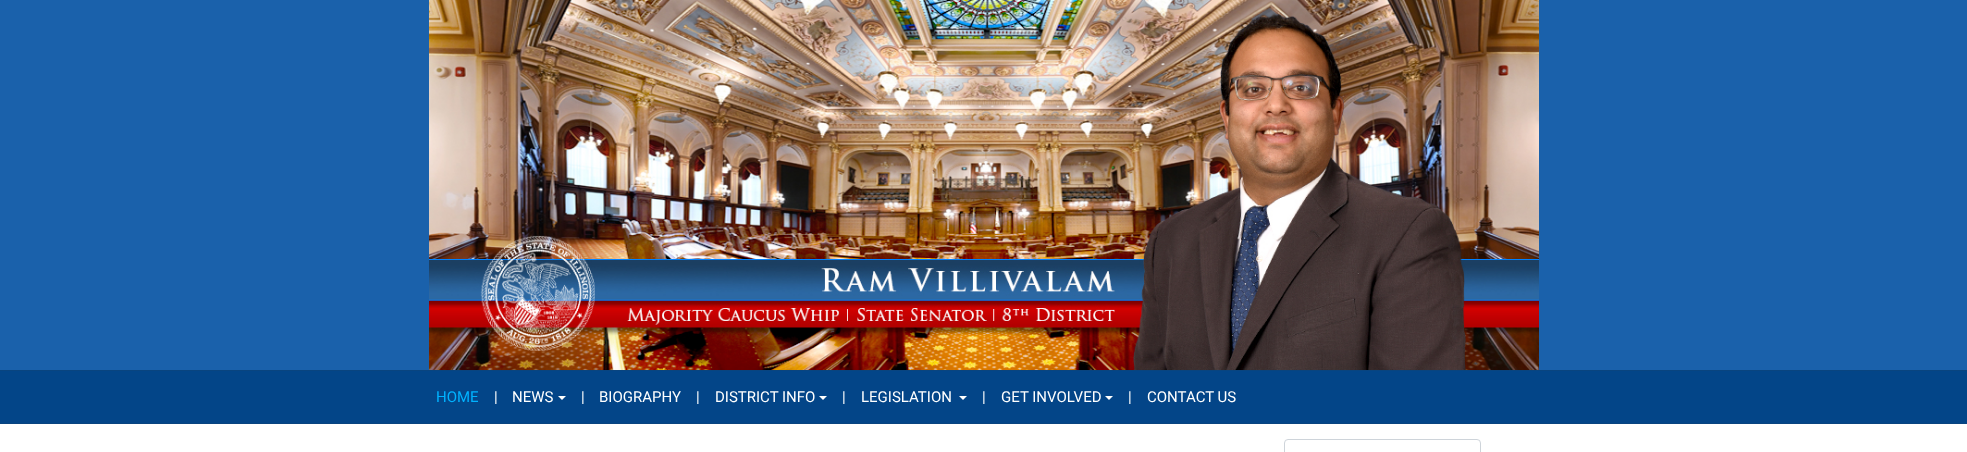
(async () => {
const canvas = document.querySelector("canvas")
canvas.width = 1967
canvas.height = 452
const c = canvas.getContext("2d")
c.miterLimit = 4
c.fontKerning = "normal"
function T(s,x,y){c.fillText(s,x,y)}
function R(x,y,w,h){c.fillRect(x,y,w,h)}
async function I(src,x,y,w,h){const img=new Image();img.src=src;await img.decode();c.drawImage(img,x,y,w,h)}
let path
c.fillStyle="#fff"
R(0,0,1967,452)
c.fillStyle="#1a61ab"
R(0,0,1967,370)
await I("1.png",429,0,1110,370)
c.fillStyle="#034588"
R(0,371,1967,52)
c.fillStyle="#09447f"
R(0,370,1967,1)
R(0,423,1967,1)
c.font="15px Roboto"
c.fillStyle="#00b2ff"
T("HOME",436,402)
c.fillStyle="#fff"
T("|",494,402)
T("NEWS",512,402)
path = new Path2D("M558 396h8l-4 4z")
c.fill(path)
T("|",581,402)
T("BIOGRAPHY",599,402)
T("|",696,402)
T("DISTRICT INFO",715,402)
path = new Path2D("M819 396h8l-4 4z")
c.fill(path)
T("|",842,402)
T("LEGISLATION",861,402)
path = new Path2D("M959 396h8l-4 4z")
c.fill(path)
T("|",982,402)
T("GET INVOLVED",1001,402)
path = new Path2D("M1105 396h8l-4 4z")
c.fill(path)
T("|",1128,402)
T("CONTACT US",1147,402)
c.beginPath()
c.roundRect(1284.5,439.5,196,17,3.5)
c.strokeStyle="#ced4da"
c.stroke()
})()
